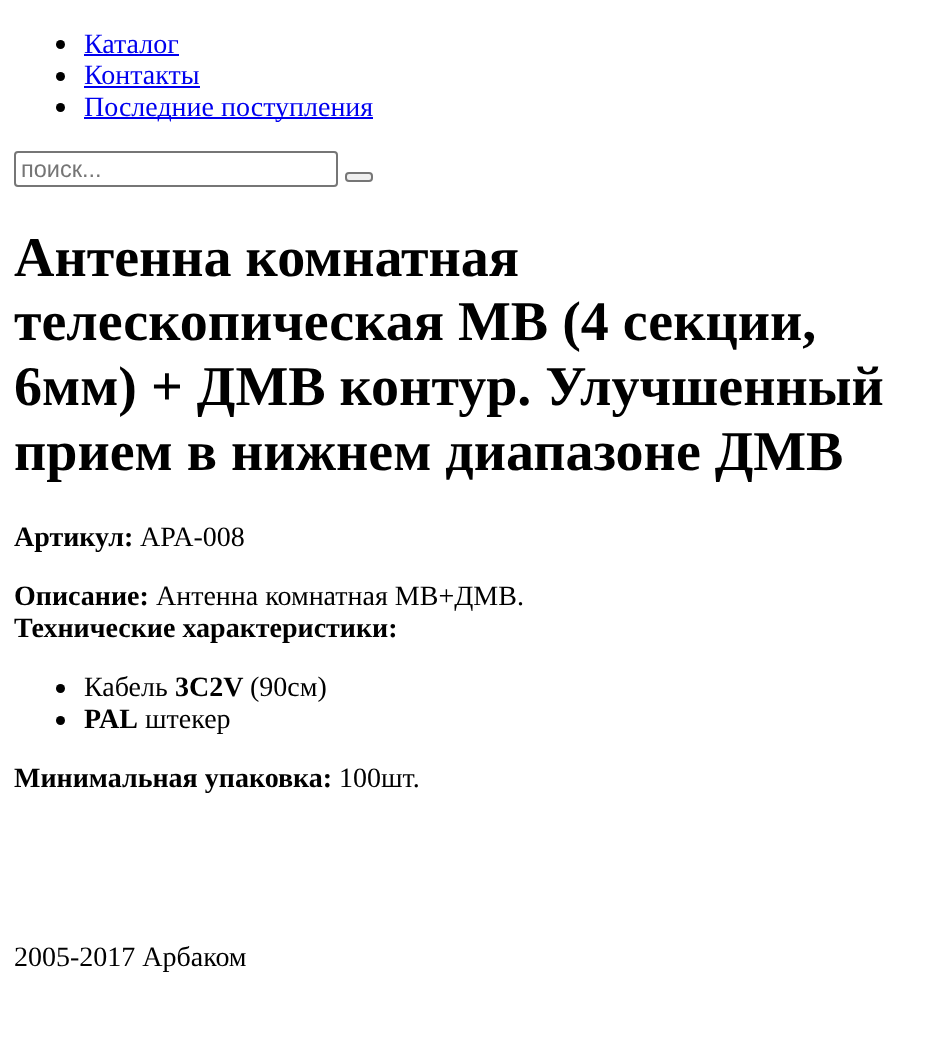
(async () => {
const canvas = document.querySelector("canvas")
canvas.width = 945
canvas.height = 1059
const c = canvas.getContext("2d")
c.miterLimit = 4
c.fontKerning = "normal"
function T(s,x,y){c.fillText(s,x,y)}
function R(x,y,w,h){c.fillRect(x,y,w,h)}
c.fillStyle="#fff"
R(0,0,945,1059)
c.fillStyle="#000"
c.beginPath()
c.arc(60.5,44.5,4.5,0,7)
c.fill()
c.font="28px Liberation Serif"
c.fillStyle="#00e"
T("Каталог",84,53)
R(84,54,95,2)
c.fillStyle="#000"
c.beginPath()
c.arc(60.5,76.5,4.5,0,7)
c.fill()
c.fillStyle="#00e"
T("Контакты",84,84)
R(84,86,116,2)
c.fillStyle="#000"
c.beginPath()
c.arc(60.5,107.5,4.5,0,7)
c.fill()
c.fillStyle="#00e"
R(84,117,289,2)
T("Последние поступления",84,116)
c.beginPath()
c.roundRect(15,152,322,34,3)
c.strokeStyle="#767676"
c.lineWidth=2
c.stroke()
c.font="23.5px Liberation Sans"
c.fillStyle="#757575"
T("поиск...",21,177)
c.fillStyle="#efefef"
c.beginPath()
c.roundRect(346,173,26,8,3)
c.fill()
c.stroke()
c.font="bold 56px Liberation Serif"
c.fillStyle="#000"
T("Антеннa комнатная",14,276)
T("телескопическая МВ (4 секции,",14,340)
T("6мм) + ДМВ контур. Улучшенный",14,405)
T("прием в нижнем диапазоне ДМВ",14,470)
c.font="bold 28px Liberation Serif"
T("Артикул:",14,546)
c.font="28px Liberation Serif"
T("APA-008",140,546)
c.font="bold 28px Liberation Serif"
T("Описание:",14,605)
c.font="28px Liberation Serif"
T("Антенна комнатная МВ+ДМВ.",156,605)
c.font="bold 28px Liberation Serif"
T("Технические характеристики:",14,637)
c.beginPath()
c.arc(60.5,688.5,4.5,0,7)
c.fill()
c.font="28px Liberation Serif"
T("Кабель",84,696)
c.font="bold 28px Liberation Serif"
T("3C2V",175,696)
c.font="28px Liberation Serif"
T("(90см)",250,696)
c.beginPath()
c.arc(60.5,720.5,4.5,0,7)
c.fill()
c.font="bold 28px Liberation Serif"
T("PAL",84,728)
c.font="28px Liberation Serif"
T("штекер",145,728)
c.font="bold 28px Liberation Serif"
T("Минимальная упаковка:",14,787)
c.font="28px Liberation Serif"
T("100шт.",339,787)
T("2005-2017 Арбаком",14,966)
})()
